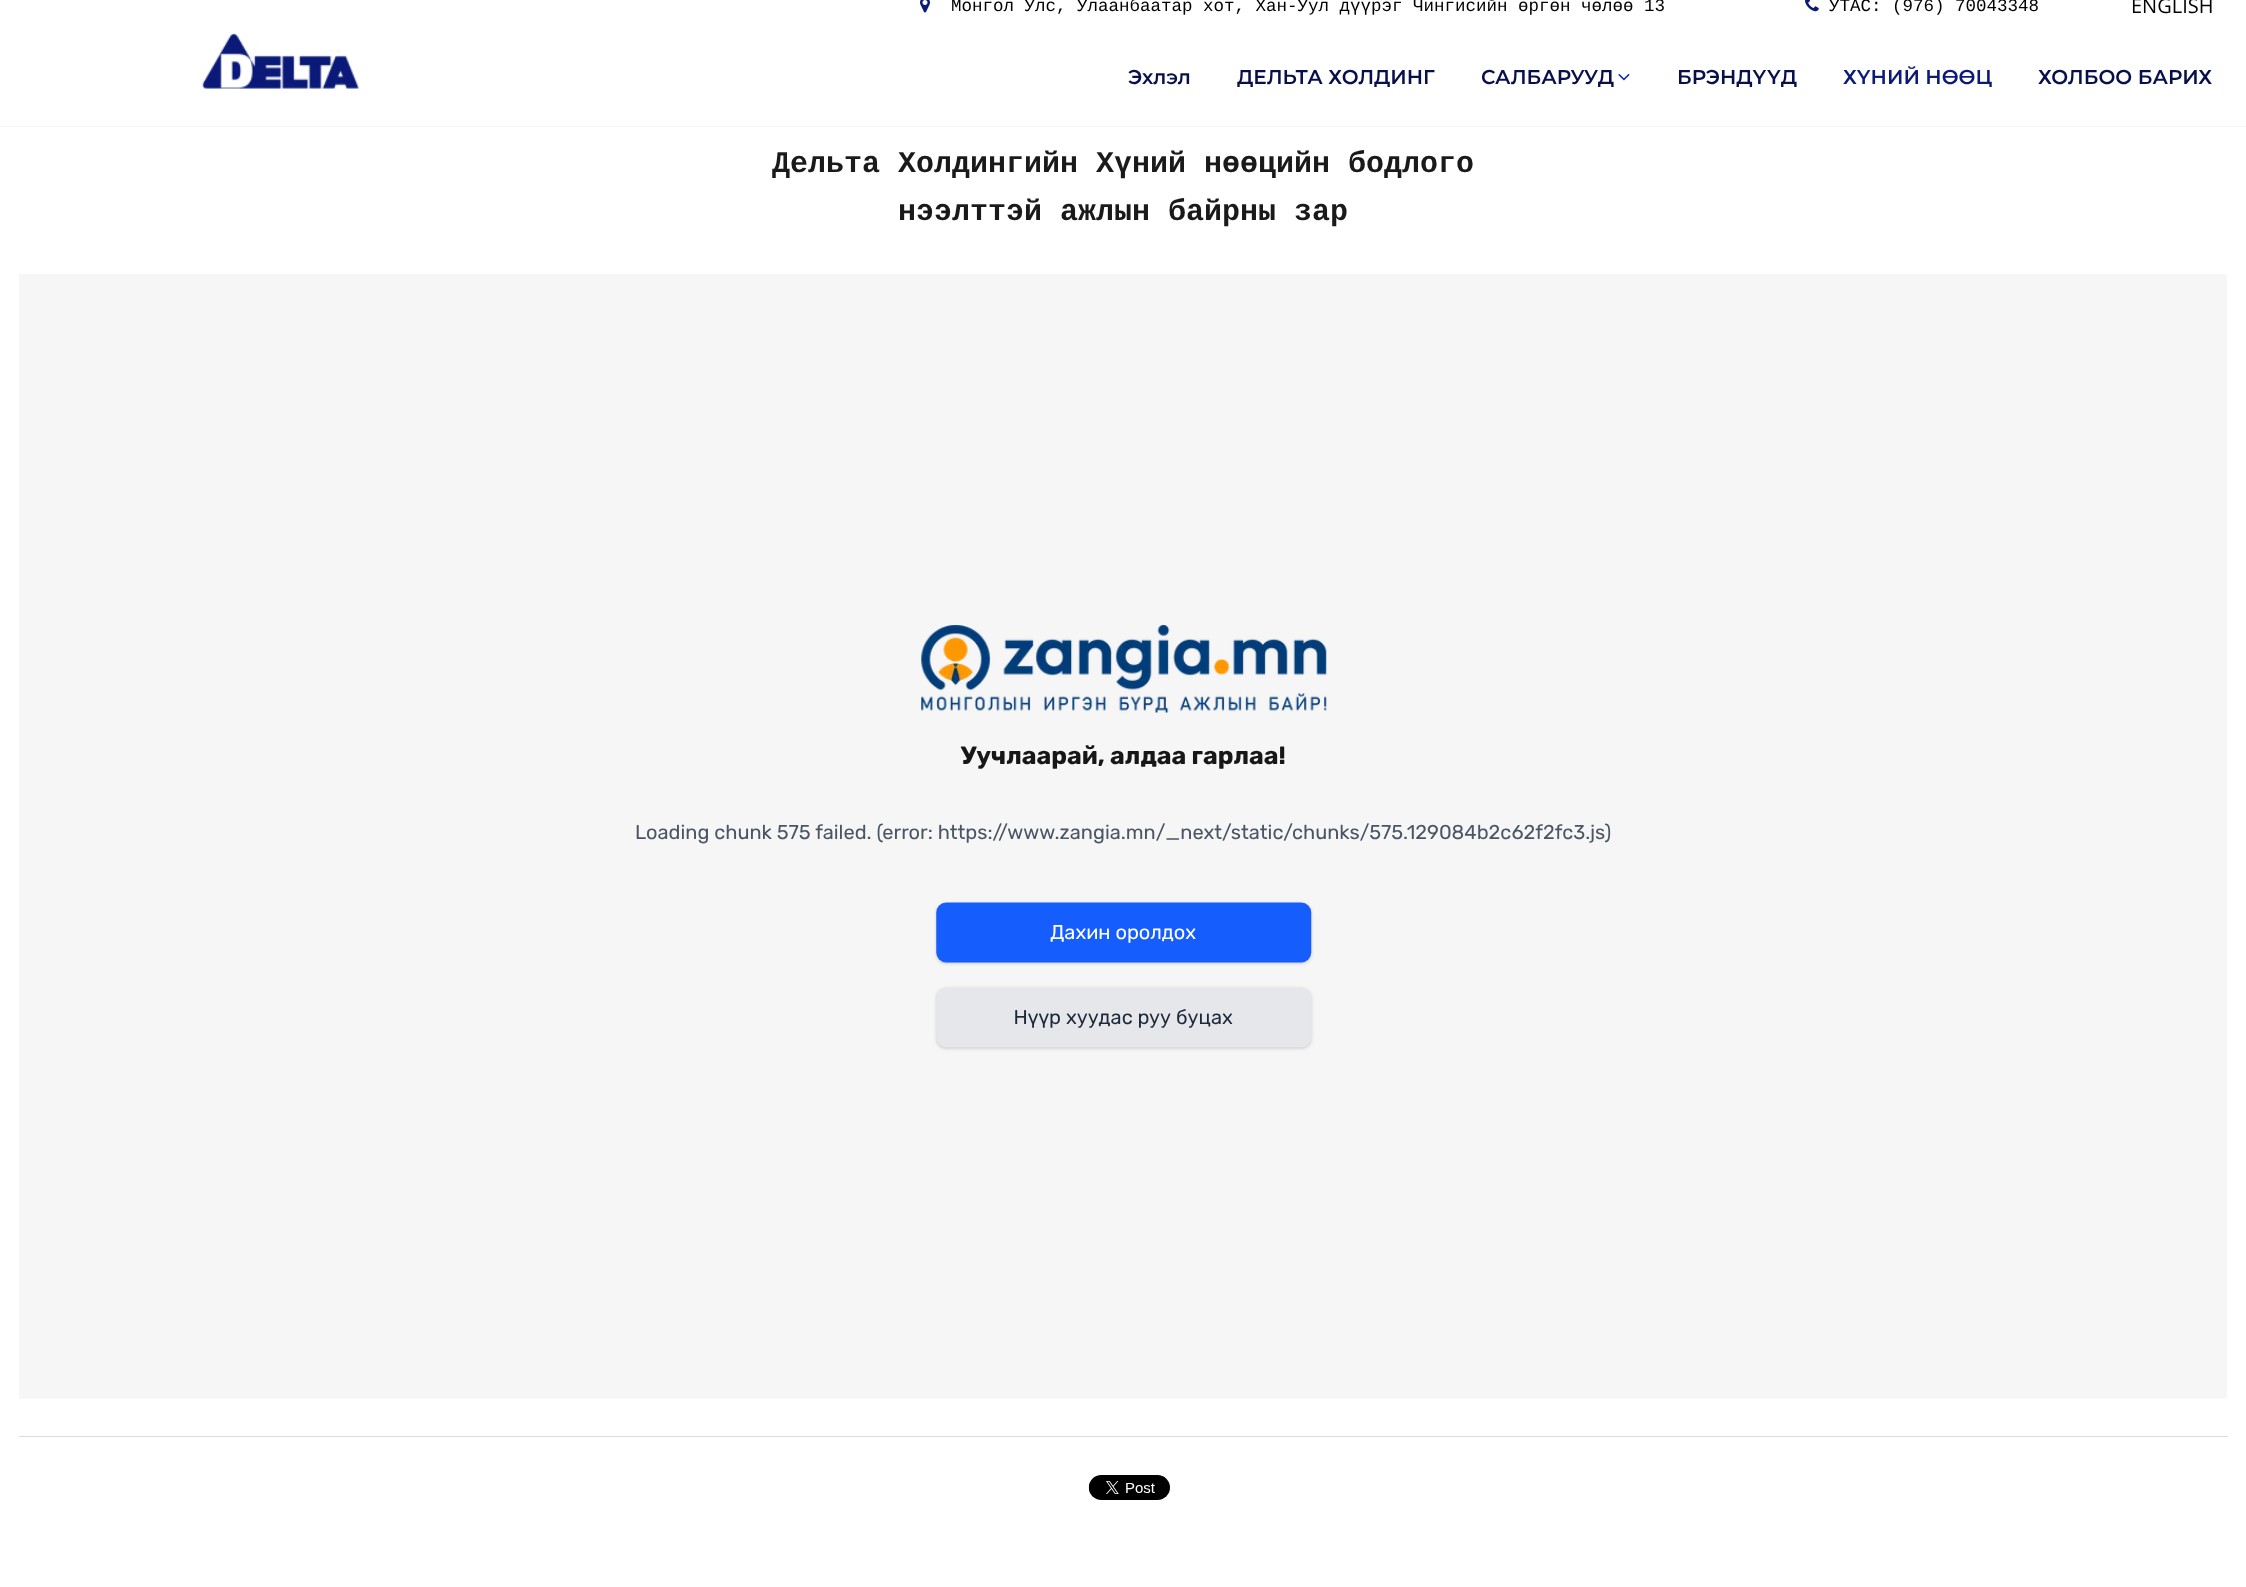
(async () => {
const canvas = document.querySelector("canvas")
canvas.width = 2246
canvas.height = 1587
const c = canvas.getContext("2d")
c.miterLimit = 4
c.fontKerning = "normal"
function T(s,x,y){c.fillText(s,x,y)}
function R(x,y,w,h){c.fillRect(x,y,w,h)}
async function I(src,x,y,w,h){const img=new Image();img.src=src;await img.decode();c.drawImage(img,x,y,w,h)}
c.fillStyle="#fff"
R(0,0,2246,1587)
await I("1.png",920,0,10,13)
c.font="17.5px Liberation Mono"
c.fillStyle="#000"
T("Монгол Улс, Улаанбаатар хот, Хан-Уул дүүрэг Чингисийн өргөн чөлөө 13",951,11)
await I("2.png",1805,0,14,12)
T("УТАС: (976) 70043348",1829,11)
c.font="20px Open Sans"
T("ENGLISH",2131,13)
c.fillStyle="#f5f6f8"
R(0,126,2246,1)
await I("3.png",202,33,157,56)
c.font="600 20px Montserrat"
c.fillStyle="#07104b"
T("Эхлэл",1128,84)
T("ДЕЛЬТА ХОЛДИНГ",1237,84)
T("САЛБАРУУД",1481,84)
await I("4.png",1618,73,12,8)
T("БРЭНДҮҮД",1677,84)
c.fillStyle="#0b1a78"
T("ХҮНИЙ НӨӨЦ",1843,84)
c.fillStyle="#07104b"
T("ХОЛБОО БАРИХ",2038,84)
c.font="bold 30px Liberation Mono"
c.fillStyle="#1a1a1a"
T("Дельта Холдингийн Хүний нөөцийн бодлого",772,172)
T("нээлттэй ажлын байрны зар",898,220)
await I("5.png",19,274,2208,1125)
c.fillStyle="#dcdcdc"
R(19,1436,2209,1)
await I("6.png",1088,1475,82,25)
})()
